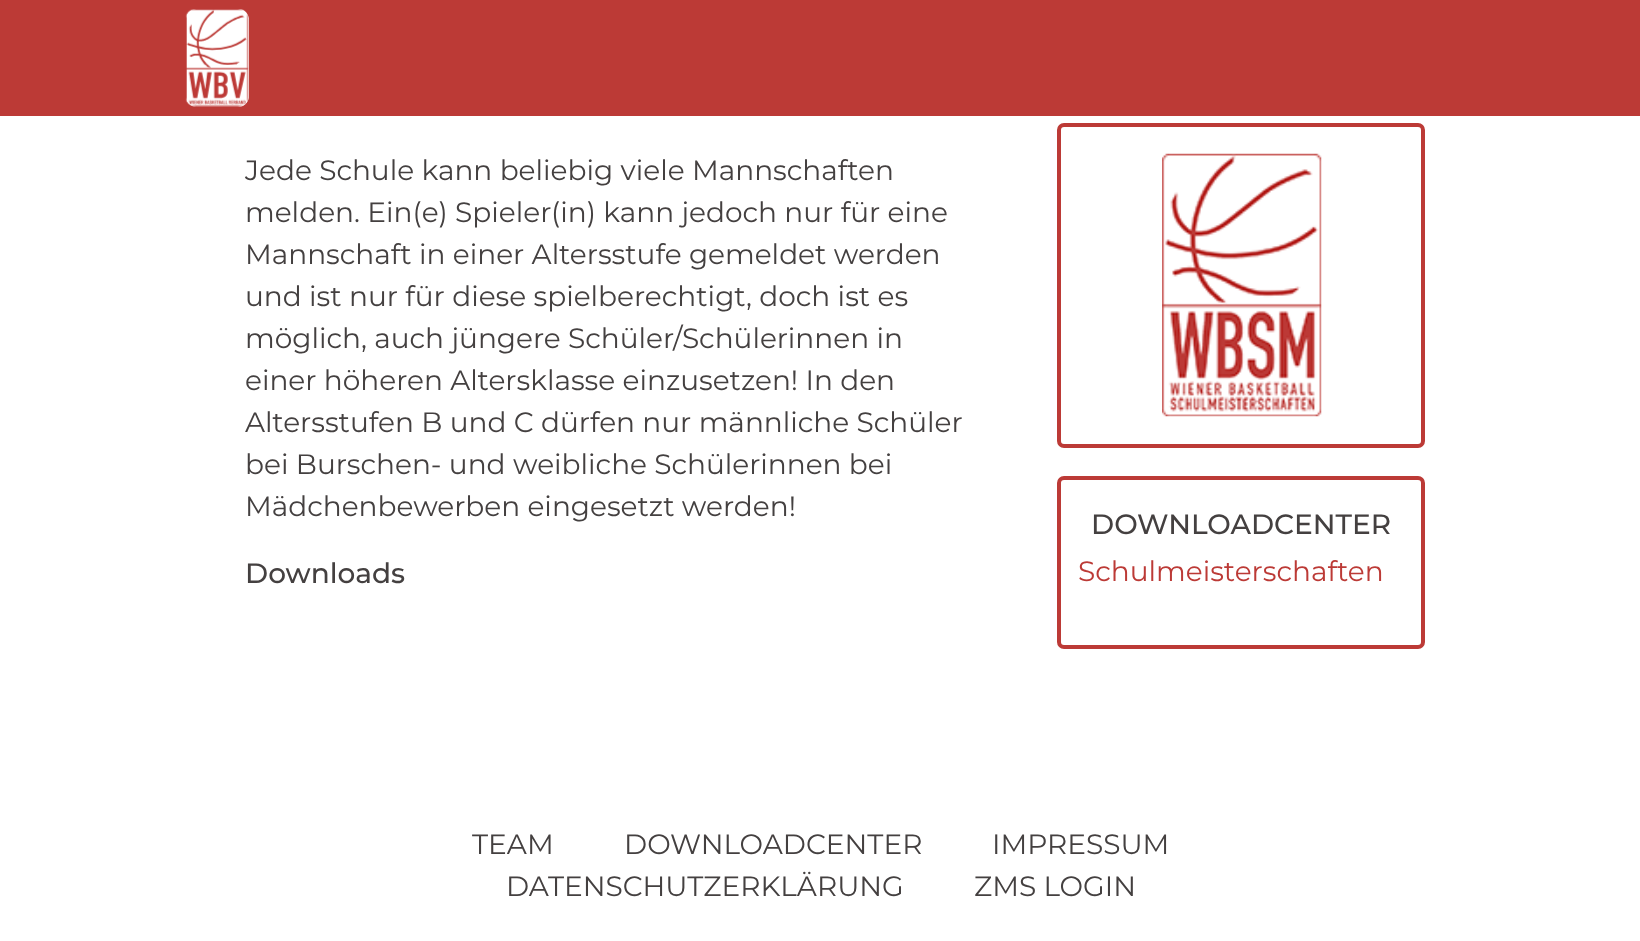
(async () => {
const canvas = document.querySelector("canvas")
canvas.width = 1640
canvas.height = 941
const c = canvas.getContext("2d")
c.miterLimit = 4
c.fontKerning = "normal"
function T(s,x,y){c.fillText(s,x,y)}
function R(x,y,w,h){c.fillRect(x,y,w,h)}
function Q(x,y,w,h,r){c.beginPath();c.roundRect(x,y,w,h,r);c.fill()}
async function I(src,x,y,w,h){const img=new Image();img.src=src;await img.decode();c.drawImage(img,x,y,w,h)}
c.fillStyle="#fff"
R(0,0,1640,941)
c.fillStyle="#bc3a36"
R(0,0,1640,116)
c.fillStyle="#fff"
Q(186,9,63,98,11)
await I("1.png",185,9,64,98)
c.font="100 28px Montserrat"
c.fillStyle="#444040"
T("Jede Schule kann beliebig viele Mannschaften",245,180)
T("melden. Ein(e) Spieler(in) kann jedoch nur für eine",245,222)
T("Mannschaft in einer Altersstufe gemeldet werden",245,264)
T("und ist nur für diese spielberechtigt, doch ist es",245,306)
T("möglich, auch jüngere Schüler/Schülerinnen in",245,348)
T("einer höheren Altersklasse einzusetzen! In den",245,390)
T("Altersstufen B und C dürfen nur männliche Schüler",245,432)
T("bei Burschen- und weibliche Schülerinnen bei",245,474)
T("Mädchenbewerben eingesetzt werden!",245,516)
c.font="100 28px 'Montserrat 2'"
T("Downloads",245,583)
c.beginPath()
c.roundRect(1059,125,364,321,5)
c.strokeStyle="#bc3a36"
c.lineWidth=4
c.stroke()
await I("2.png",1162,153,160,264)
c.beginPath()
c.roundRect(1059,478,364,169,5)
c.stroke()
T("DOWNLOADCENTER",1091,534)
c.font="100 28px Montserrat"
c.fillStyle="#bc3a36"
T("Schulmeisterschaften",1078,581)
c.fillStyle="#444040"
T("TEAM",472,854)
T("DOWNLOADCENTER",624,854)
T("IMPRESSUM",992,854)
T("DATENSCHUTZERKLÄRUNG",506,896)
T("ZMS LOGIN",974,896)
})()
